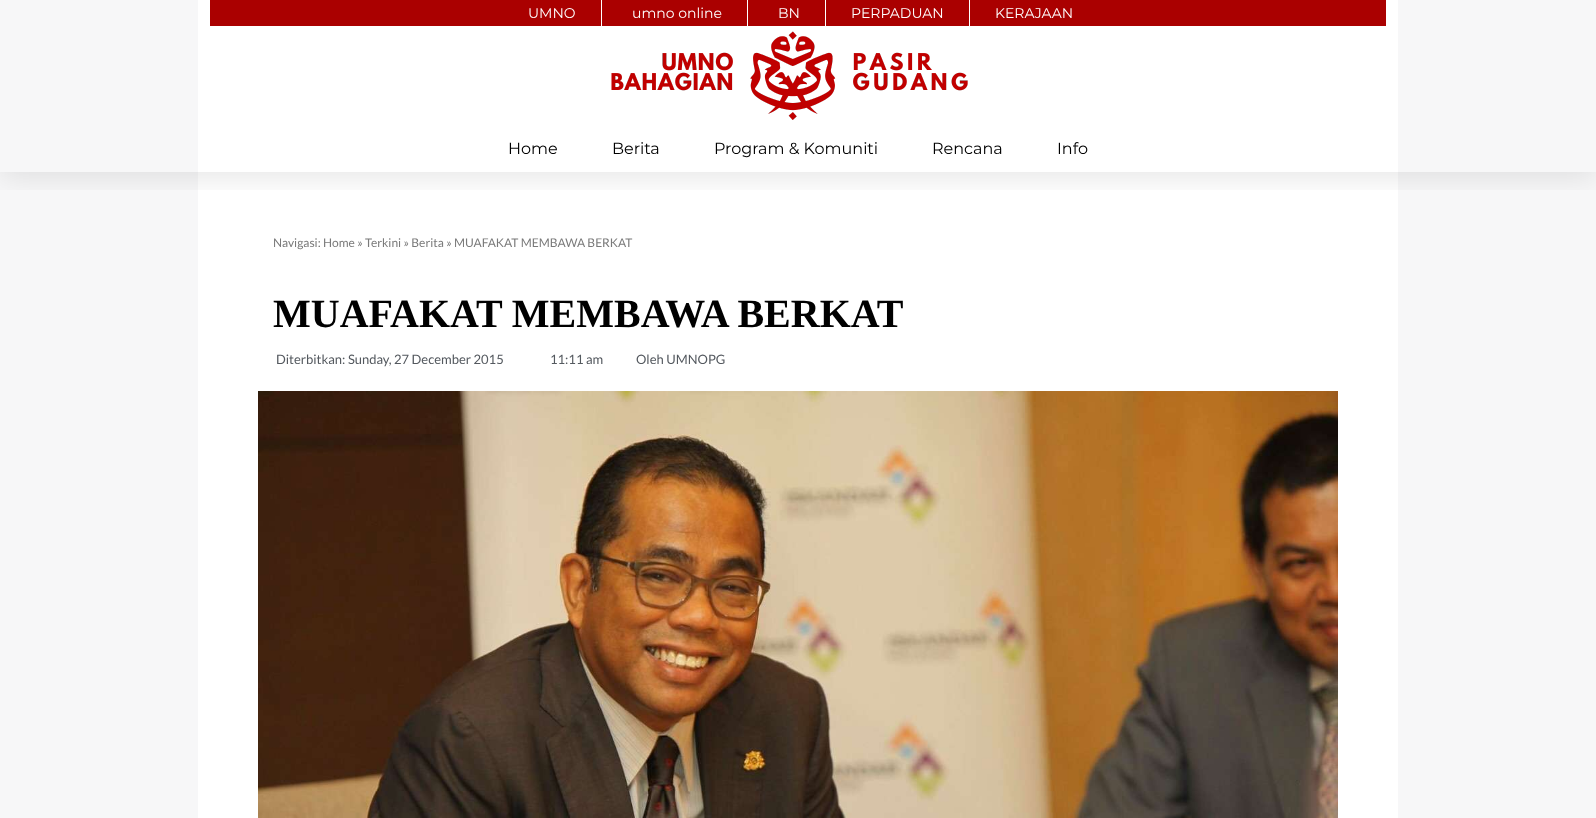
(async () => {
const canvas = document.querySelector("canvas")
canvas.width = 1596
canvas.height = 818
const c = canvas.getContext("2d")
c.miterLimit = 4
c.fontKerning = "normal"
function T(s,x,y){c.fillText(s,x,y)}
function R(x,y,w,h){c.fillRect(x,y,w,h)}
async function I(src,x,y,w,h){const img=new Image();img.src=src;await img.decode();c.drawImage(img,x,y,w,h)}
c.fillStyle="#f7f7f8"
R(0,0,1596,818)
c.fillStyle="#fff"
R(198,172,1200,646)
c.save()
c.beginPath()
c.rect(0,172,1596,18)
c.clip()
c.fillStyle="#0000001a"
c.filter="blur(15px)"
c.beginPath()
c.rect(0,5,1596,172)
c.fill()
c.filter="none"
c.restore()
R(198,0,1200,172)
c.fillStyle="#a00"
R(210,0,1176,26)
c.font="14px Montserrat"
c.fillStyle="#fff"
T("UMNO",528,18)
R(601,0,1,26)
T("umno online",632,18)
R(747,0,1,26)
T("BN",778,18)
R(825,0,1,26)
T("PERPADUAN",851,18)
R(969,0,1,26)
T("KERAJAAN",995,18)
await I("1.png",611,31,357,89)
c.font="16px Montserrat"
c.fillStyle="#000"
T("Home",508,154)
T("Berita",612,154)
T("Program & Komuniti",714,154)
T("Rencana",932,154)
T("Info",1057,154)
c.font="12px Lato"
c.fillStyle="#7a7a7a"
T("Navigasi: Home » Terkini » Berita » MUAFAKAT MEMBAWA BERKAT",273,247)
c.font="bold 40px Liberation Serif"
c.fillStyle="#000"
T("MUAFAKAT MEMBAWA BERKAT",273,327)
c.font="13px Lato"
c.fillStyle="#54595f"
T("Diterbitkan: Sunday, 27 December 2015",276,364)
T("11:11 am",550,364)
T("Oleh UMNOPG",636,364)
await I("2.png",258,391,1080,427)
})()
